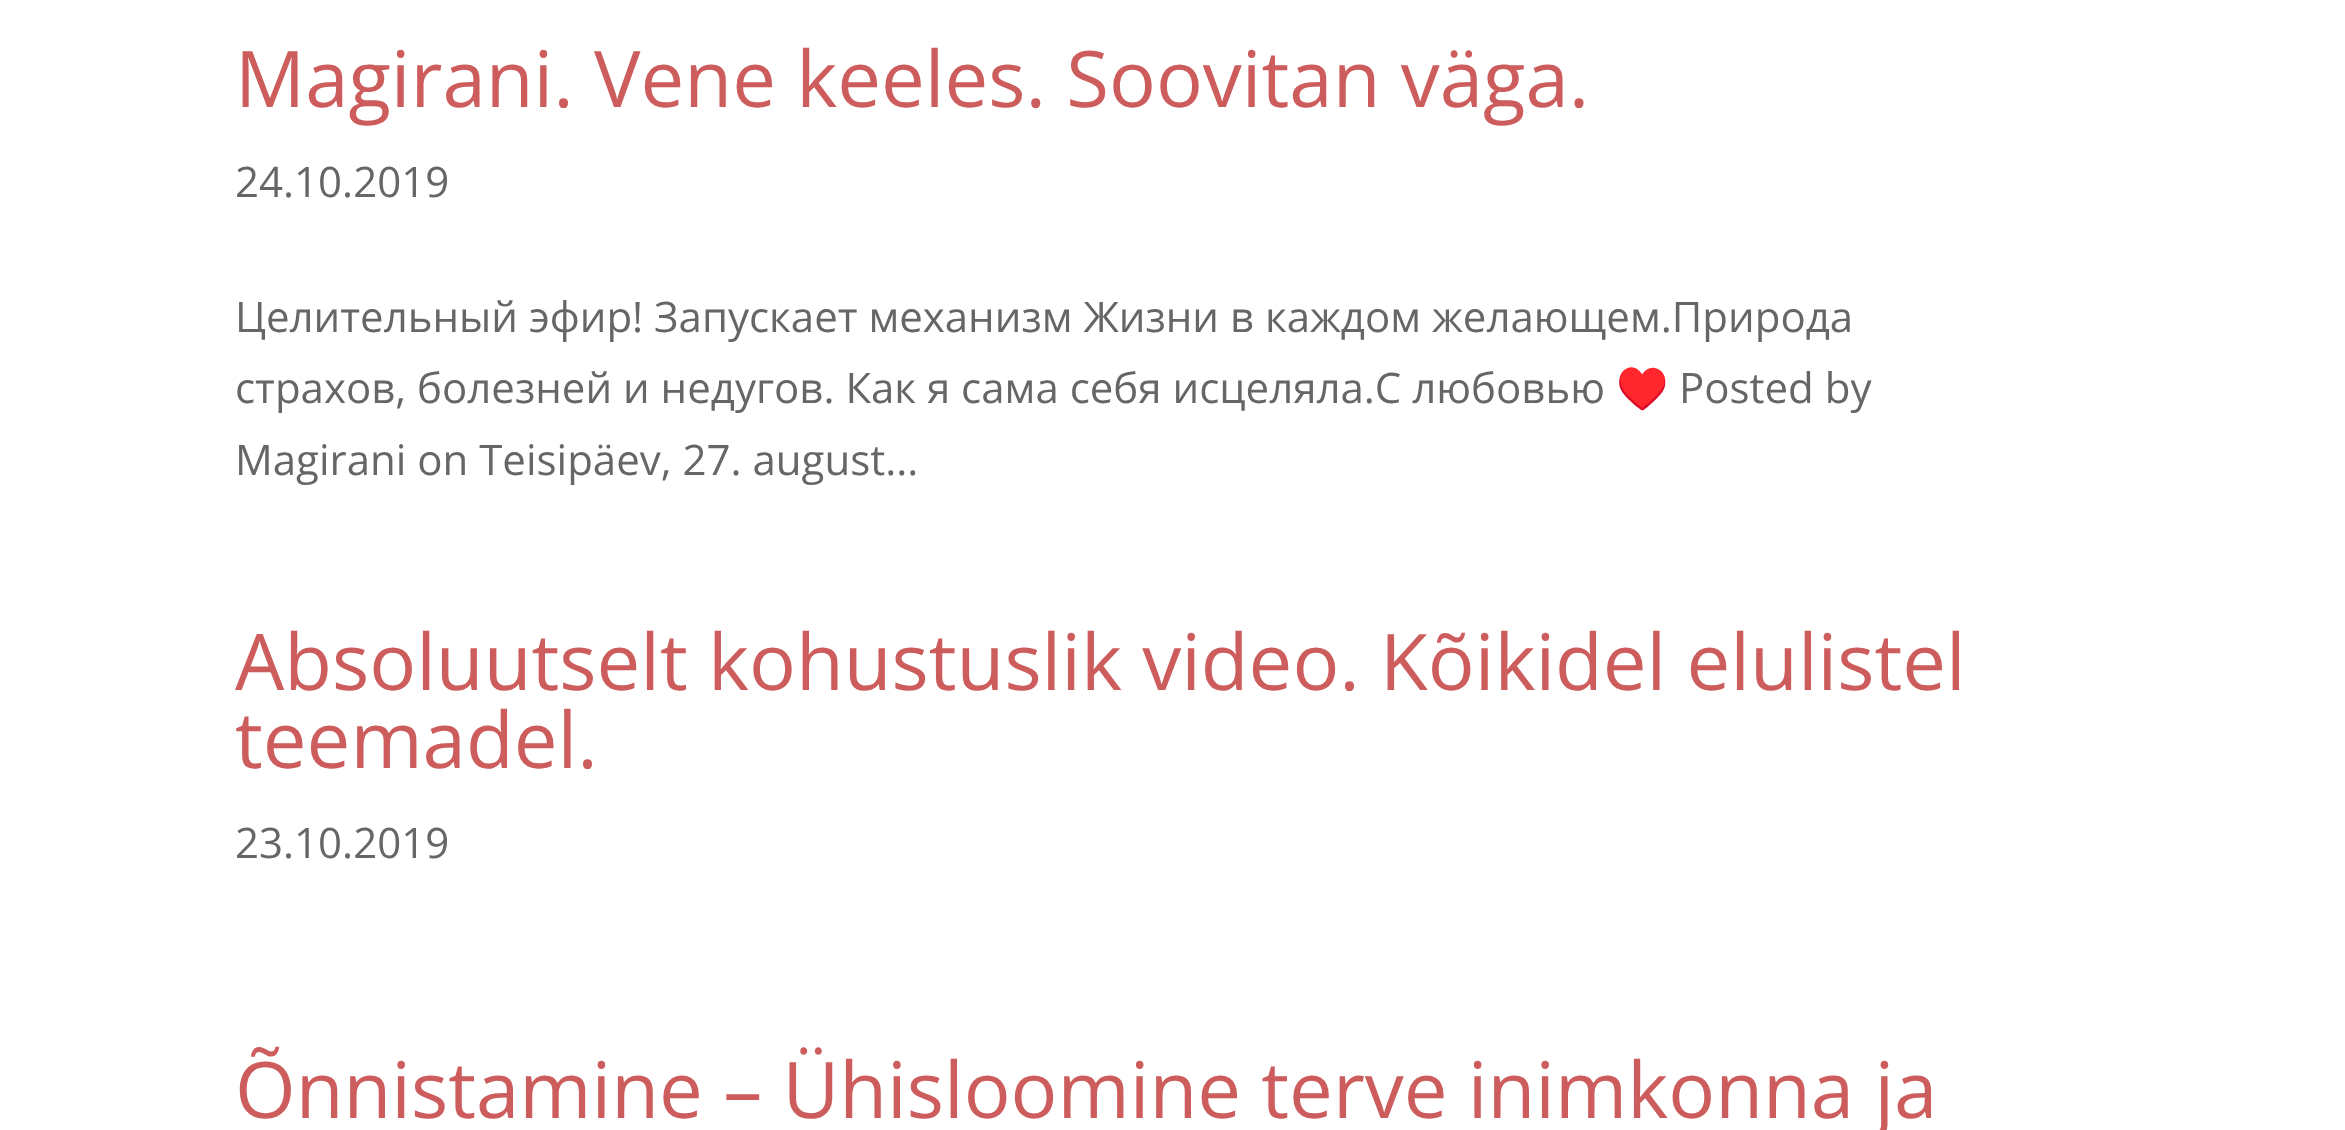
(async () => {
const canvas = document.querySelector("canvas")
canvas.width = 2345
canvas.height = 1130
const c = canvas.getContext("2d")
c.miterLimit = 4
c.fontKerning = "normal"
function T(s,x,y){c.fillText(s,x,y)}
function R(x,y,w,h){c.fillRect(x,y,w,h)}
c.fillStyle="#fff"
R(0,0,2345,1130)
c.font="78px Open Sans"
c.fillStyle="#cd5c5c"
T("Magirani. Vene keeles. Soovitan väga.",235,107)
c.font="42px Open Sans"
c.fillStyle="#666"
T("24.10.2019",235,197)
T("Целительный эфир! Запускает механизм Жизни в каждом желающем.Природа",235,332)
T("страхов, болезней и недугов. Как я сама себя исцеляла.С любовью",235,403)
c.font="42px Noto Color Emoji"
T("♥️",1616,403)
c.font="42px Open Sans"
T("Posted by",1679,403)
T("Magirani on Teisipäev, 27. august...",235,475)
c.font="78px Open Sans"
c.fillStyle="#cd5c5c"
T("Absoluutselt kohustuslik video. Kõikidel elulistel",235,690)
T("teemadel.",235,768)
c.font="42px Open Sans"
c.fillStyle="#666"
T("23.10.2019",235,858)
c.font="78px Open Sans"
c.fillStyle="#cd5c5c"
T("Õnnistamine – Ühisloomine terve inimkonna ja",235,1118)
})()
